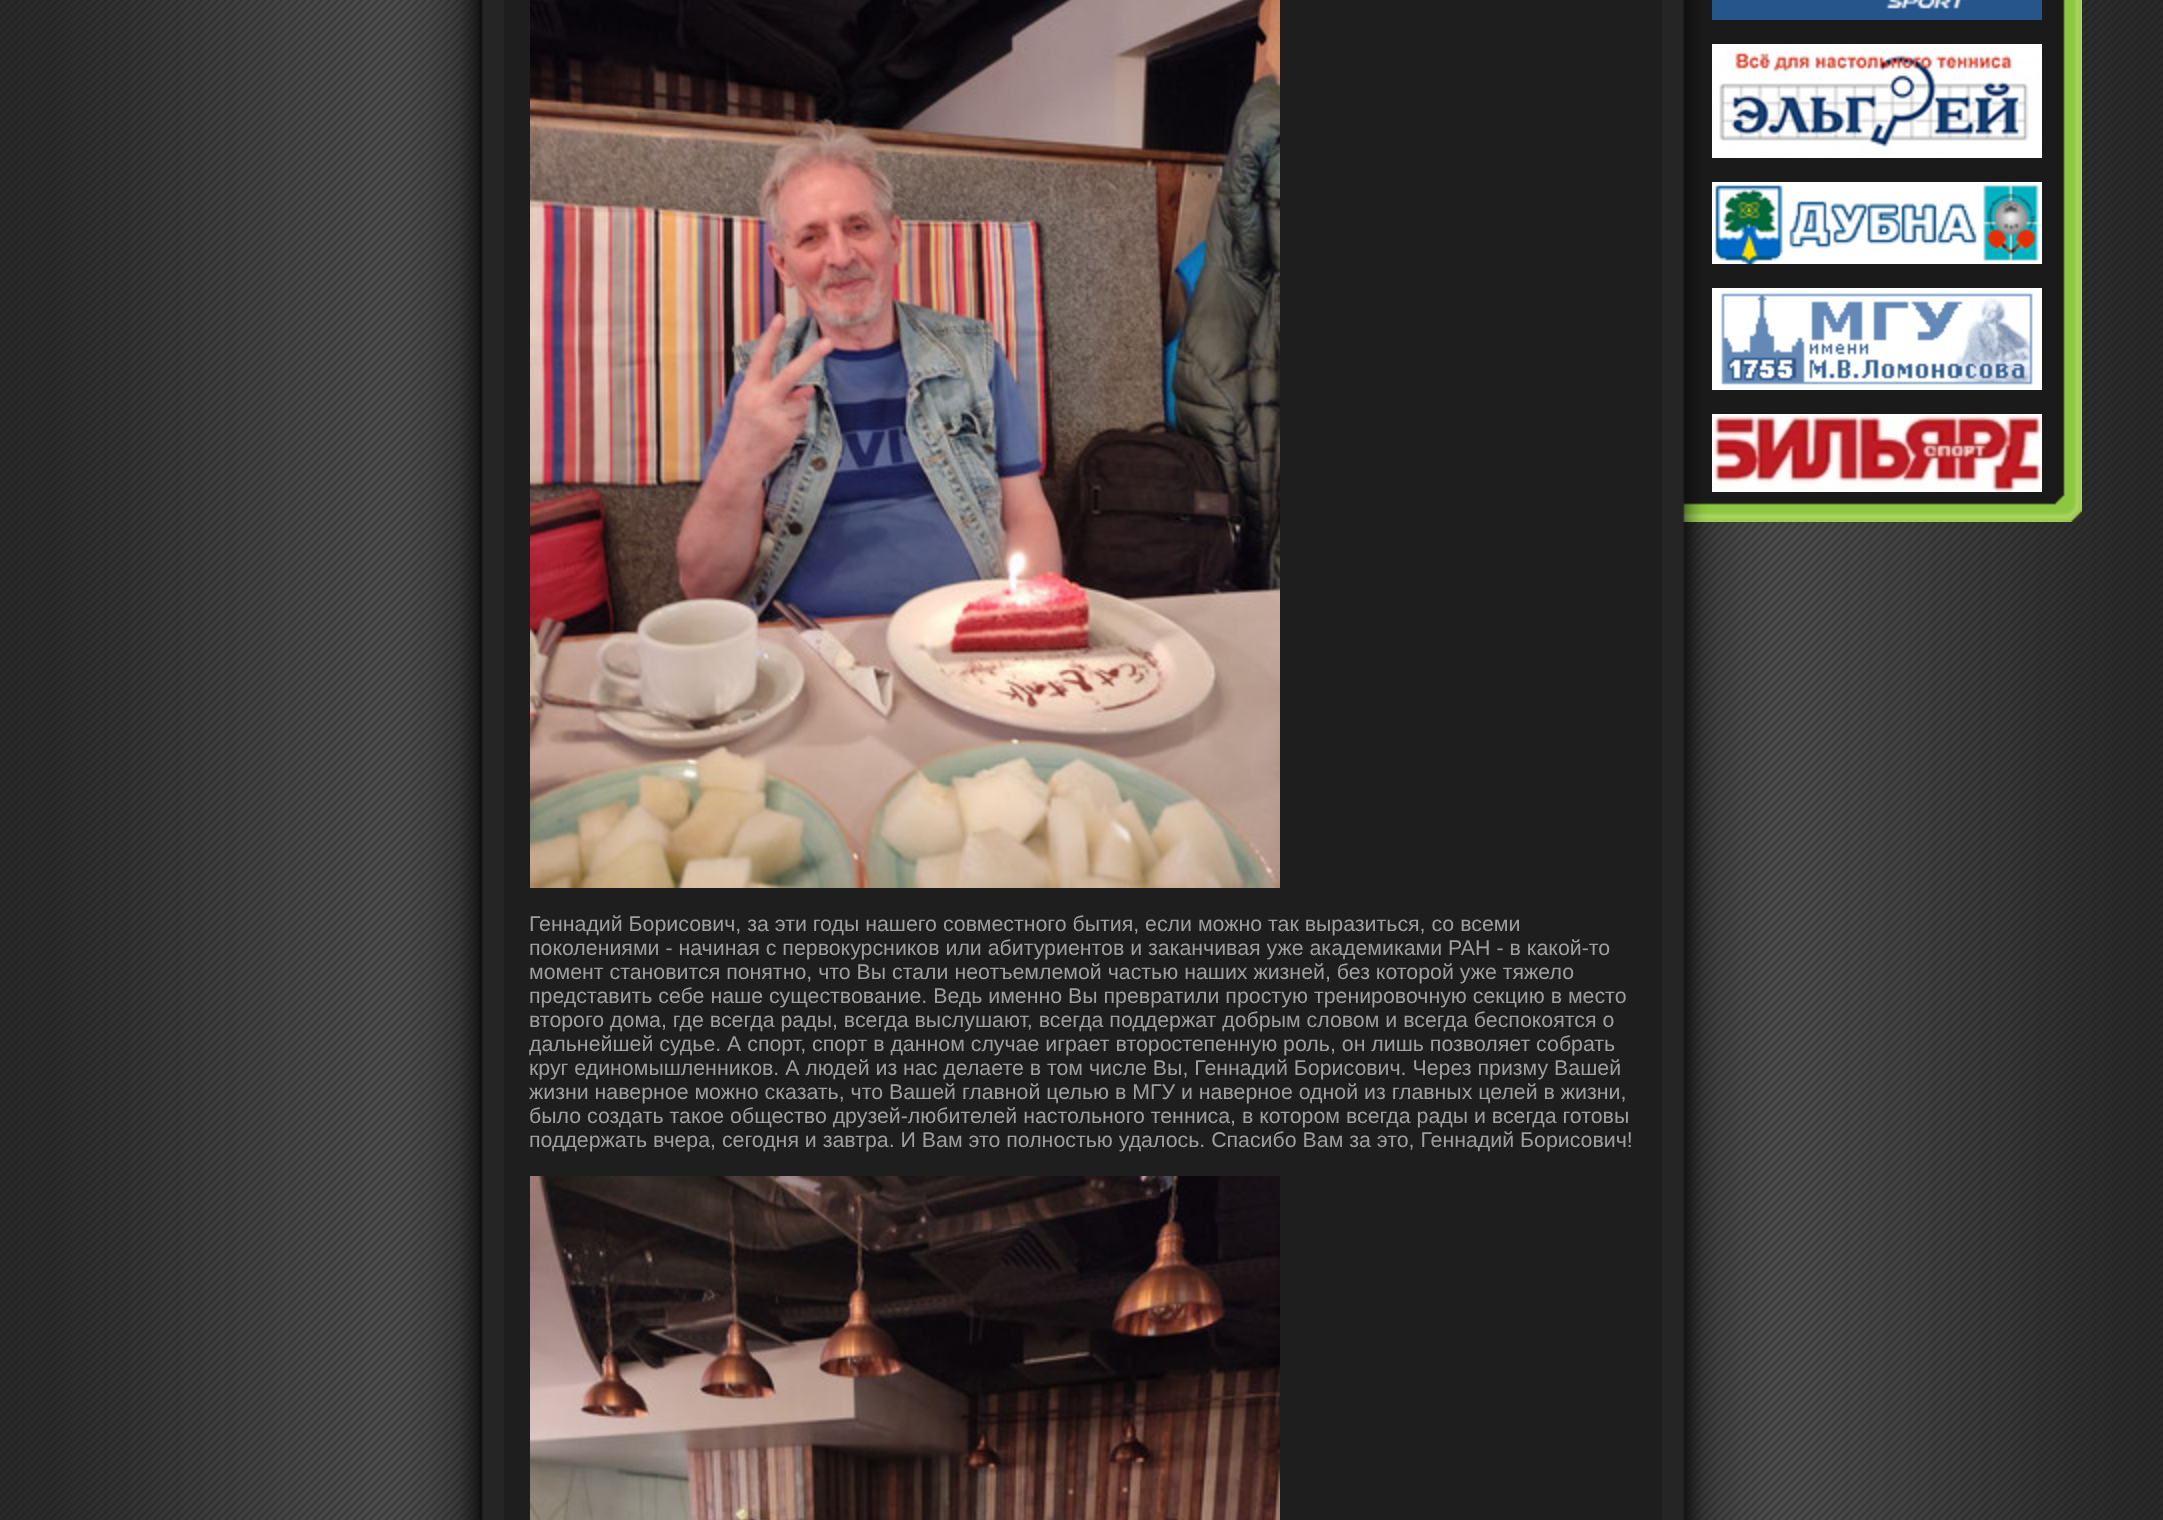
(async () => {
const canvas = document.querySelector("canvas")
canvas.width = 2163
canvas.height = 1520
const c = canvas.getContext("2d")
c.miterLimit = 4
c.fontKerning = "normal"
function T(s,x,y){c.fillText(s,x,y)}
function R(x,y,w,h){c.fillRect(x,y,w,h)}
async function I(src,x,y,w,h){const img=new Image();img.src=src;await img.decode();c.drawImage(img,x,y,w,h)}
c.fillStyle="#fff"
R(0,0,2163,1520)
await I("1.png",0,0,2163,1520)
await I("2.png",1683,0,399,522)
await I("3.png",1712,0,330,20)
await I("4.png",1712,44,330,114)
await I("5.png",1712,182,330,82)
await I("6.png",1712,288,330,102)
await I("7.png",1712,414,330,78)
c.fillStyle="#1e1e1e"
R(504,0,1158,1520)
await I("8.png",530,0,750,888)
c.font="21.33px Liberation Sans"
c.fillStyle="#9f9f9f"
T("Геннадий Борисович, за эти годы нашего совместного бытия, если можно так выразиться, со всеми",529,931)
T("поколениями - начиная с первокурсников или абитуриентов и заканчивая уже академиками РАН - в какой-то",529,955)
T("момент становится понятно, что Вы стали неотъемлемой частью наших жизней, без которой уже тяжело",529,979)
T("представить себе наше существование. Ведь именно Вы превратили простую тренировочную секцию в место",529,1003)
T("второго дома, где всегда рады, всегда выслушают, всегда поддержат добрым словом и всегда беспокоятся о",529,1027)
T("дальнейшей судье. А спорт, спорт в данном случае играет второстепенную роль, он лишь позволяет собрать",529,1051)
T("круг единомышленников. А людей из нас делаете в том числе Вы, Геннадий Борисович. Через призму Вашей",529,1075)
T("жизни наверное можно сказать, что Вашей главной целью в МГУ и наверное одной из главных целей в жизни,",529,1099)
T("было создать такое общество друзей-любителей настольного тенниса, в котором всегда рады и всегда готовы",529,1123)
T("поддержать вчера, сегодня и завтра. И Вам это полностью удалось. Спасибо Вам за это, Геннадий Борисович!",529,1147)
await I("9.png",530,1176,750,344)
})()
